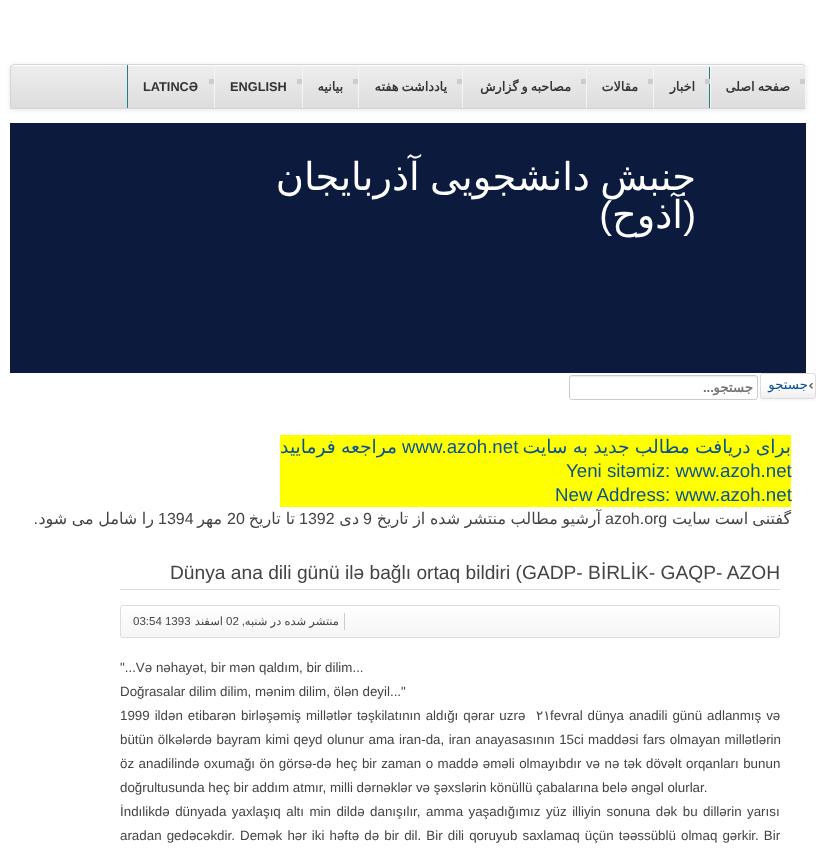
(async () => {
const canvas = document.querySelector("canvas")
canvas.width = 816
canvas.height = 853
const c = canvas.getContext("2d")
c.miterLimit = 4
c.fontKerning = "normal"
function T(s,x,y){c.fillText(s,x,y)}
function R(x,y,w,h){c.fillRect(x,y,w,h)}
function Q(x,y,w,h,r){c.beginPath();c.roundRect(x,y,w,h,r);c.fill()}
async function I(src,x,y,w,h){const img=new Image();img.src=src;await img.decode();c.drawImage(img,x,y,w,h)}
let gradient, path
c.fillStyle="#fff"
R(0,0,816,853)
c.fillStyle="#0000001a"
c.filter="blur(2.5px)"
c.beginPath()
c.roundRect(10,65,796,45,4)
c.fill()
c.filter="none"
c.save()
c.beginPath()
c.roundRect(10,64,796,45,[4,4,0,0])
c.clip()
gradient = c.createLinearGradient(408,65,408,108)
gradient.addColorStop(0,"#eee")
gradient.addColorStop(1,"#ddd")
c.fillStyle = gradient
R(10,65,795,43)
c.restore()
c.fillStyle="#fff"
path = new Path2D("M14 66h788c2 0 3 1 3 3c0-2-1-4-3-4h-788c-2 0-3 2-3 4c0-2 1-3 3-3z")
c.fill(path)
c.beginPath()
c.roundRect(10.5,64.5,795,44,[3.5,3.5,0,0])
c.strokeStyle="#d5d5d5"
c.stroke()
c.fillStyle="#f5f5f5"
R(214,65,1,43)
c.fillStyle="#ccc"
R(209,79,5,5)
c.fillStyle="#237d85"
R(127,65,1,43)
c.font="bold 12.75px Liberation Sans"
c.fillStyle="#333"
T("LATINCƏ",143,91)
c.fillStyle="#f5f5f5"
R(302,65,1,43)
c.fillStyle="#ccc"
R(297,79,5,5)
c.fillStyle="#333"
T("ENGLISH",230,91)
c.fillStyle="#f5f5f5"
R(358,65,1,43)
c.fillStyle="#ccc"
R(353,79,5,5)
c.direction="rtl"
c.font="bold 12.75px DejaVu Sans"
c.fillStyle="#333"
T("بیانیه",343,91)
c.fillStyle="#f5f5f5"
R(462,65,1,43)
c.fillStyle="#ccc"
R(457,79,5,5)
c.wordSpacing="-1px"
c.fillStyle="#333"
T("یادداشت هفته",447,91)
c.fillStyle="#f5f5f5"
R(586,65,1,43)
c.fillStyle="#ccc"
R(581,79,5,5)
c.fillStyle="#333"
T("مصاحبه و گزارش",571,91)
c.fillStyle="#f5f5f5"
R(653,65,1,43)
c.fillStyle="#ccc"
R(648,79,5,5)
c.wordSpacing="0px"
c.fillStyle="#333"
T("مقالات",638,91)
c.fillStyle="#f5f5f5"
R(710,65,1,43)
c.fillStyle="#237d85"
R(709,67,1,41)
c.fillStyle="#ccc"
R(705,79,5,5)
c.fillStyle="#333"
T("اخبار",695,91)
c.fillStyle="#f5f5f5"
R(805,65,1,43)
c.fillStyle="#ccc"
R(800,79,5,5)
c.wordSpacing="-1px"
c.fillStyle="#333"
T("صفحه اصلی",790,91)
c.fillStyle="#0c1a3e"
R(10,123,796,250)
c.wordSpacing="-2px"
c.font="38.4px DejaVu Sans"
c.fillStyle="#fff"
T("جنبش دانشجویی آذربایجان",696,190)
c.wordSpacing="0px"
c.font="38.4px Liberation Sans"
T(")",612,228)
c.font="38.4px DejaVu Sans"
T("آذوح",683,228)
c.font="38.4px Liberation Sans"
T("(",696,228)
c.fillStyle="#ececec"
path = new Path2D("M572 377h183c1 0 2 1 2 2v-1c0-1-1-2-2-2h-183c-1 0-2 1-2 2v1c0-1 1-2 2-2z")
c.fill(path)
c.beginPath()
c.roundRect(569.5,375.5,188,24,2.5)
c.strokeStyle="#ccc"
c.stroke()
c.font="bold 13.35px Liberation Sans"
c.fillStyle="#757575"
T("...",714,392)
c.font="bold 13.35px DejaVu Sans"
T("جستجو",753,392)
c.fillStyle="#0000000d"
c.filter="blur(1px)"
c.beginPath()
c.roundRect(760,374,56,26,3)
c.fill()
c.filter="none"
c.fillStyle="#fff"
Q(760,373,56,26,3)
await I("1.png",760,383,55,16)
c.beginPath()
c.roundRect(760.5,373.5,55,25,2.5)
c.strokeStyle="#ddd"
c.stroke()
c.font="13.35px DejaVu Sans"
c.fillStyle="#095197"
T("جستجو",808,389)
c.fillStyle="#ff0"
R(280,435,511,72)
c.wordSpacing="-0.75px"
c.font="18.7px DejaVu Sans"
c.fillStyle="#095197"
T("مراجعه فرمایید",397,453)
c.wordSpacing="0px"
c.direction="ltr"
c.font="18.7px Liberation Sans"
T("www.azoh.net",402,453)
c.wordSpacing="-0.75px"
c.direction="rtl"
c.font="18.7px DejaVu Sans"
T("برای دریافت مطالب جدید به سایت",791,453)
c.wordSpacing="0px"
c.direction="ltr"
c.font="18.7px Liberation Sans"
T("Yeni sitəmiz: www.azoh.net",566,477)
T("New Address: www.azoh.net",555,501)
c.direction="rtl"
c.font="16px Liberation Sans"
c.fillStyle="#444"
T(".",38,524)
c.wordSpacing="-0.5px"
c.font="16px DejaVu Sans"
T("را شامل می شود",154,524)
c.wordSpacing="0px"
c.direction="ltr"
c.font="16px Liberation Sans"
T("1394",158,524)
c.direction="rtl"
c.font="16px DejaVu Sans"
T("مهر",222,524)
c.direction="ltr"
c.font="16px Liberation Sans"
T("20",227,524)
c.direction="rtl"
c.font="16px DejaVu Sans"
T("تا تاریخ",295,524)
c.direction="ltr"
c.font="16px Liberation Sans"
T("1392",299,524)
c.direction="rtl"
c.font="16px DejaVu Sans"
T("دی",359,524)
c.direction="ltr"
c.font="16px Liberation Sans"
T("9",363,524)
c.wordSpacing="-0.5px"
c.direction="rtl"
c.font="16px DejaVu Sans"
T("آرشیو مطالب منتشر شده از تاریخ",601,524)
c.wordSpacing="0px"
c.direction="ltr"
c.font="16px Liberation Sans"
T("azoh.org",605,524)
c.wordSpacing="-1px"
c.direction="rtl"
c.font="16px DejaVu Sans"
T("گفتنی است سایت",791,524)
c.fillStyle="#ddd"
R(120,589,660,1)
c.wordSpacing="0px"
c.direction="ltr"
c.font="19.2px Liberation Sans"
c.fillStyle="#444"
T("Dünya ana dili günü ilə bağlı ortaq bildiri (GADP- BİRLİK- GAQP- AZOH",170,579)
c.save()
c.beginPath()
c.roundRect(120,605,660,33,3)
c.clip()
gradient = c.createLinearGradient(450,606,450,637)
gradient.addColorStop(0,"#fff")
gradient.addColorStop(1,"#f5f5f5")
c.fillStyle = gradient
R(120,606,660,31)
c.restore()
c.beginPath()
c.roundRect(120.5,605.5,659,32,2.5)
c.stroke()
c.fillStyle="#ccc"
R(344,613,1,17)
c.font="11.5px Liberation Sans"
c.fillStyle="#444"
T("03:54 1393",133,625)
c.direction="rtl"
c.font="11.5px DejaVu Sans"
T("اسفند",223,625)
c.direction="ltr"
c.font="11.5px Liberation Sans"
T("02",226,625)
c.direction="rtl"
T(",",245,625)
c.wordSpacing="-0.5px"
c.font="11.5px DejaVu Sans"
T("منتشر شده در شنبه",339,625)
c.wordSpacing="0px"
c.direction="ltr"
c.font="13.35px Liberation Sans"
T("\"...Və nəhayət, bir mən qaldım, bir dilim...",120,672)
T("Doğrasalar dilim dilim, mənim dilim, ölən deyil...\"",120,696)
c.wordSpacing="1.25px"
T("1999 ildən etibarən birləşəmiş millətlər təşkilatının aldığı qərar uzrə",120,720)
c.wordSpacing="0px"
c.font="13.35px DejaVu Sans"
T("۲۱",536,720)
c.wordSpacing="1.25px"
c.font="13.35px Liberation Sans"
T("fevral dünya anadili günü adlanmış və",550,720)
c.wordSpacing="0.75px"
T("bütün ölkələrdə bayram kimi qeyd olunur ama iran-da, iran anayasasının 15ci maddəsi fars olmayan millətlərin",120,744)
T("öz anadilində oxumağı ön görsə-də heç bir zaman o maddə əməli olmayıbdır və nə tək dövəlt orqanları bunun",120,768)
c.wordSpacing="0px"
T("doğrultusunda heç bir addım atmır, milli dərnəklər və şəxslərin könüllü çabalarına belə əngəl olurlar.",120,792)
c.wordSpacing="1.75px"
T("İndılikdə dünyada yaxlaşıq altı min dildə danışılır, amma yaşadığımız yüz illiyin sonuna dək bu dillərin yarısı",120,816)
c.wordSpacing="1.4px"
T("aradan gedəcəkdir. Demək hər iki həftə də bir dil. Bir dili qoruyub saxlamaq üçün təəssüblü olmaq gərkir. Bir",120,840)
})()
